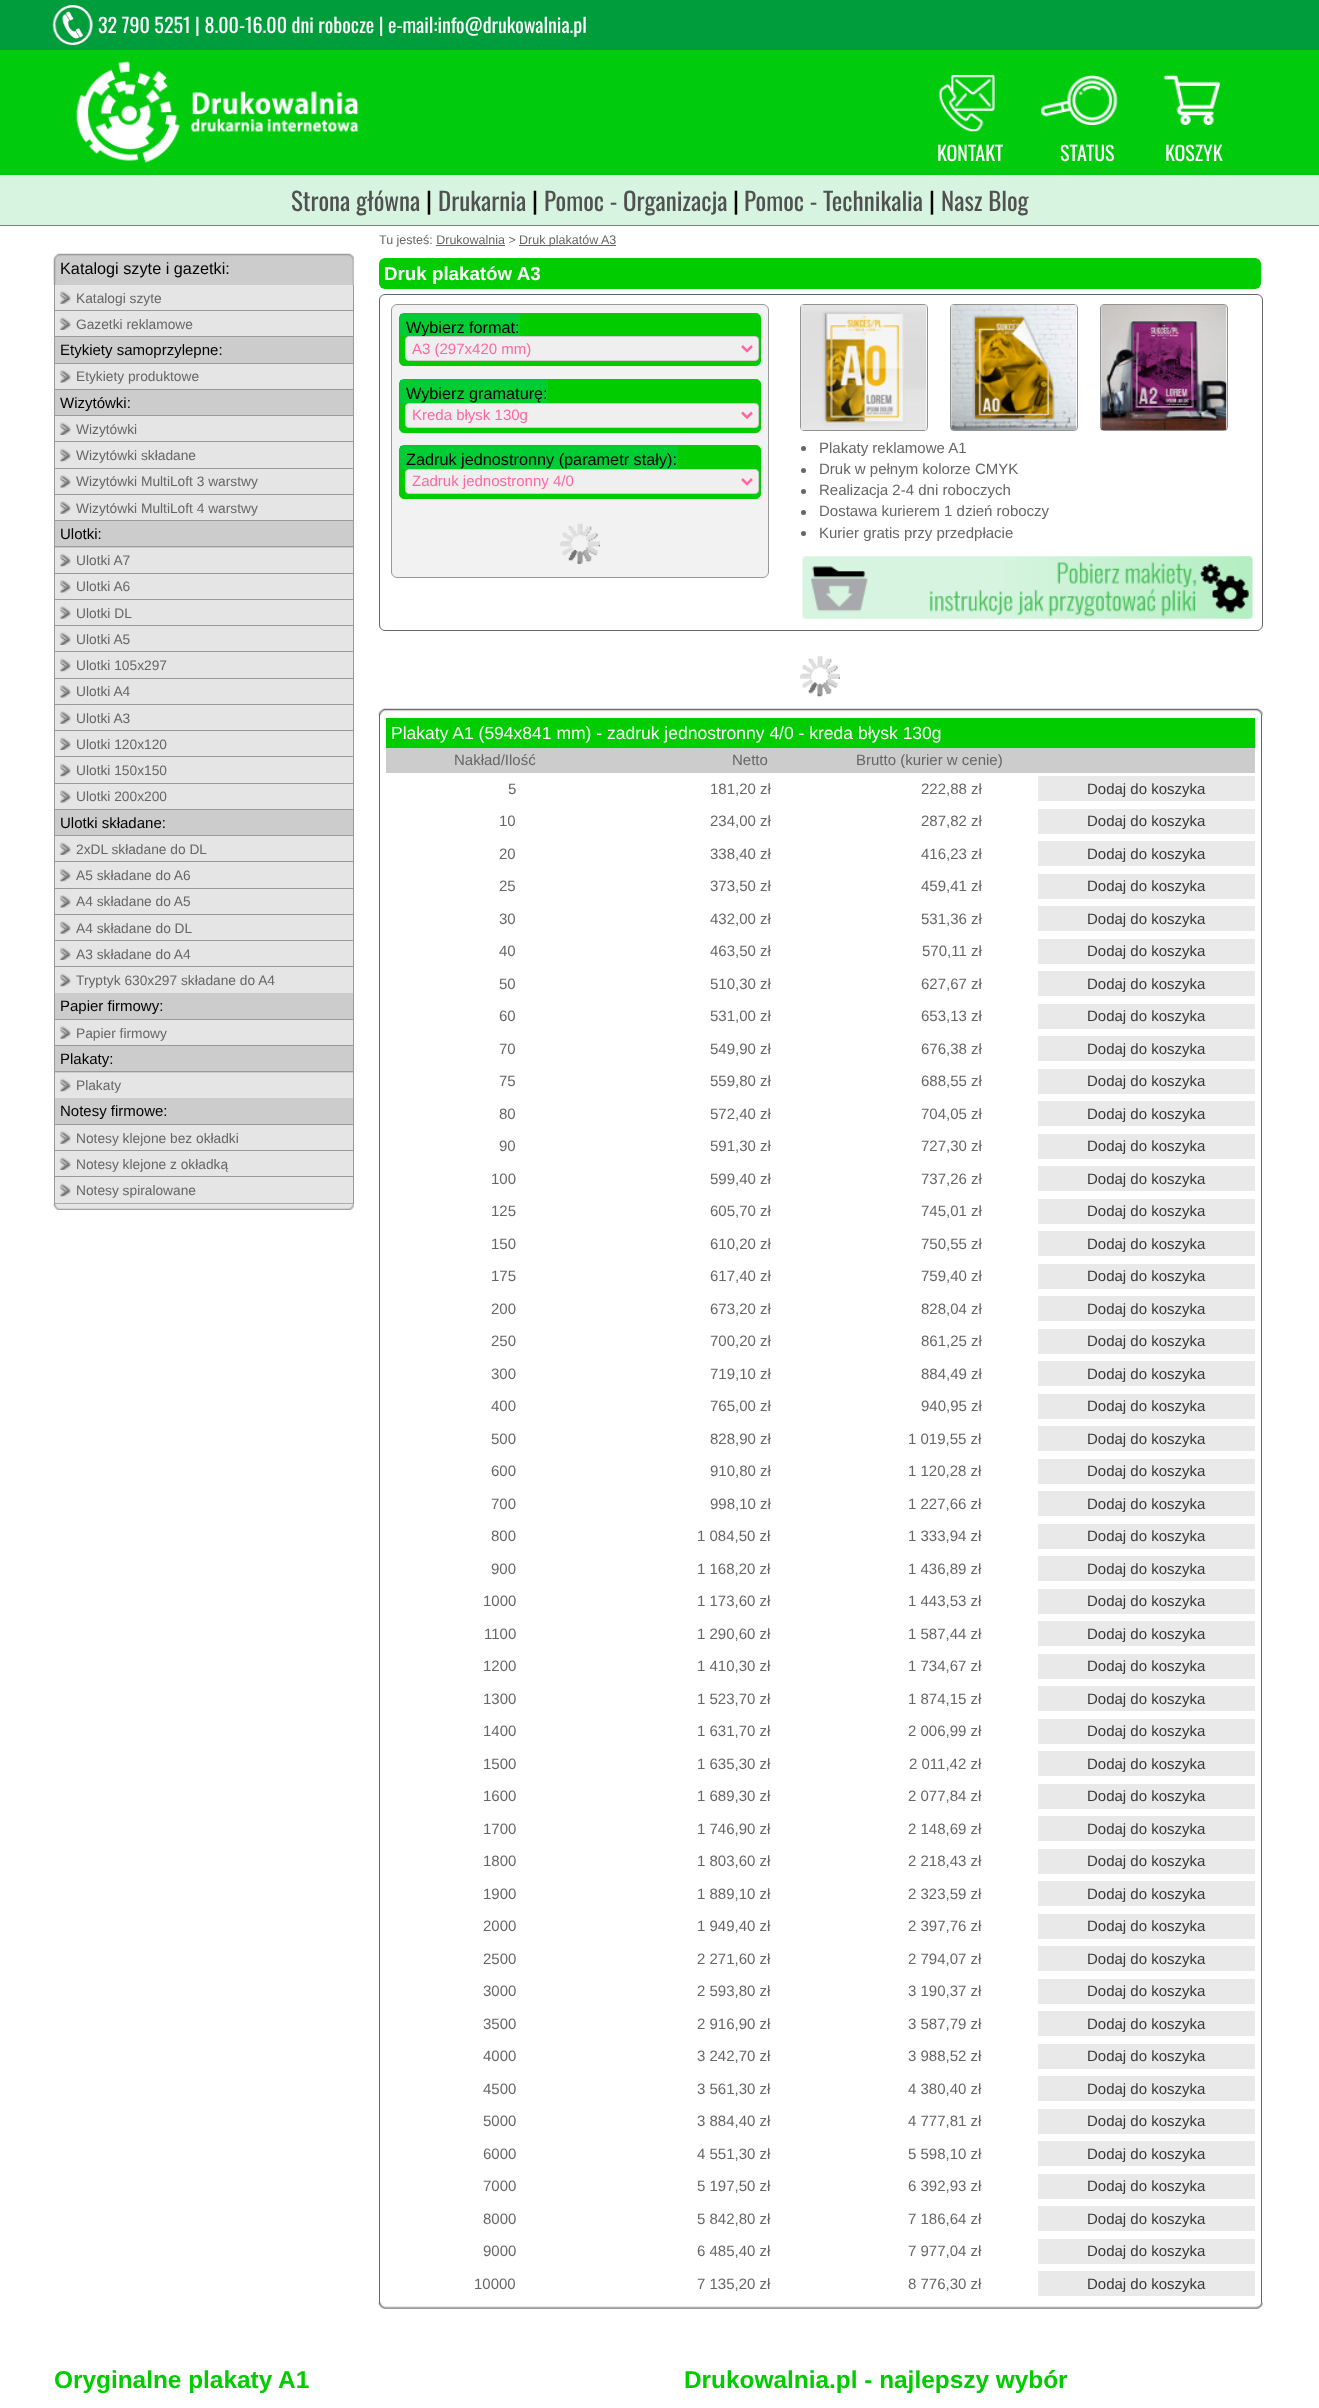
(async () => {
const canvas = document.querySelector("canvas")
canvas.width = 1319
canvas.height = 2408
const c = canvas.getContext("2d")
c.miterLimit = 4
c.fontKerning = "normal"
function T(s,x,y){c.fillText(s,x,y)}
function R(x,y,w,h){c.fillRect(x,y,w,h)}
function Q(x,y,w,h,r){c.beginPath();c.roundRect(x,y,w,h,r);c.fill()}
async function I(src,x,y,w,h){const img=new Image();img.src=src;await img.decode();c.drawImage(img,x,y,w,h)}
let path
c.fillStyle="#fff"
R(0,0,1319,2408)
c.fillStyle="#009d3c"
R(0,0,1319,50)
await I("1.png",52,5,41,40)
c.font="20px Oswald"
c.fillStyle="#fff"
T("32 790 5251 | 8.00-16.00 dni robocze | e-mail:info@drukowalnia.pl",98,33)
c.fillStyle="#00cc0d"
R(0,50,1319,125)
await I("2.png",76,61,283,102)
await I("3.png",938,75,57,57)
c.fillStyle="#fff"
T("KONTAKT",937,161)
await I("4.png",1041,75,77,50)
T("STATUS",1060,161)
await I("5.png",1163,75,57,50)
T("KOSZYK",1165,161)
c.fillStyle="#d7f4e0"
R(0,175,1319,50)
c.fillStyle="#828282"
R(0,225,1319,1)
c.font="25px Oswald"
c.fillStyle="#515151"
T("Strona główna",291,211)
c.fillStyle="#000"
T("|",426,211)
c.fillStyle="#515151"
T("Drukarnia",438,211)
c.fillStyle="#000"
T("|",532,211)
c.fillStyle="#515151"
T("Pomoc - Organizacja",544,211)
c.fillStyle="#000"
T("|",733,211)
c.fillStyle="#515151"
T("Pomoc - Technikalia",744,211)
c.fillStyle="#000"
T("|",929,211)
c.fillStyle="#515151"
T("Nasz Blog",941,211)
c.font="12.5px Liberation Sans"
c.fillStyle="#666"
T("Tu jesteś: Drukowalnia >",379,244)
R(519,245,97,1)
T("Druk plakatów A3",519,244)
R(436,245,69,1)
await I("6.png",53,253,301,32)
c.font="16.25px Liberation Sans"
c.fillStyle="#000"
T("Katalogi szyte i gazetki:",60,274)
c.fillStyle="#999"
R(353,285,1,919)
R(54,285,1,919)
c.fillStyle="#e5e5e5"
R(55,285,298,25)
await I("7.png",60,291,11,13)
c.fillStyle="#999"
R(55,310,298,1)
c.font="13.75px Liberation Sans"
c.fillStyle="#666"
T("Katalogi szyte",76,303)
c.fillStyle="#e5e5e5"
R(55,311,298,25)
await I("8.png",59,317,12,13)
c.fillStyle="#999"
R(55,336,298,1)
c.fillStyle="#666"
T("Gazetki reklamowe",76,329)
c.fillStyle="#ccc"
R(55,337,298,26)
c.fillStyle="#999"
R(55,363,298,1)
c.font="15px Liberation Sans"
c.fillStyle="#000"
T("Etykiety samoprzylepne:",60,355)
c.fillStyle="#e5e5e5"
R(55,364,298,25)
await I("9.png",60,370,11,13)
c.fillStyle="#999"
R(55,389,298,1)
c.font="13.75px Liberation Sans"
c.fillStyle="#666"
T("Etykiety produktowe",76,381)
c.fillStyle="#ccc"
R(55,390,298,25)
c.fillStyle="#999"
R(55,415,298,1)
c.font="15px Liberation Sans"
c.fillStyle="#000"
T("Wizytówki:",60,408)
c.fillStyle="#e5e5e5"
R(55,416,298,52)
await I("8.png",59,422,12,13)
c.fillStyle="#999"
R(55,441,298,1)
c.font="13.75px Liberation Sans"
c.fillStyle="#666"
T("Wizytówki",76,434)
await I("10.png",60,448,11,14)
c.fillStyle="#999"
R(55,468,298,1)
c.fillStyle="#666"
T("Wizytówki składane",76,460)
c.fillStyle="#e5e5e5"
R(55,469,298,25)
await I("9.png",60,475,11,13)
c.fillStyle="#999"
R(55,494,298,1)
c.fillStyle="#666"
T("Wizytówki MultiLoft 3 warstwy",76,486)
c.fillStyle="#e5e5e5"
R(55,495,298,25)
await I("11.png",60,501,11,13)
c.fillStyle="#999"
R(55,520,298,1)
c.fillStyle="#666"
T("Wizytówki MultiLoft 4 warstwy",76,513)
c.fillStyle="#ccc"
R(55,521,298,27)
c.fillStyle="#999"
R(55,546,298,1)
c.font="15px Liberation Sans"
c.fillStyle="#000"
T("Ulotki:",60,539)
c.fillStyle="#e5e5e5"
R(55,548,298,25)
await I("10.png",60,553,11,14)
c.fillStyle="#999"
R(55,573,298,1)
c.font="13.75px Liberation Sans"
c.fillStyle="#666"
T("Ulotki A7",76,565)
c.fillStyle="#e5e5e5"
R(55,574,298,25)
await I("9.png",60,580,11,13)
c.fillStyle="#999"
R(55,599,298,1)
c.fillStyle="#666"
T("Ulotki A6",76,591)
c.fillStyle="#e5e5e5"
R(55,600,298,25)
await I("11.png",60,606,11,13)
c.fillStyle="#999"
R(55,625,298,1)
c.fillStyle="#666"
T("Ulotki DL",76,618)
c.fillStyle="#e5e5e5"
R(55,626,298,52)
await I("8.png",59,632,12,13)
c.fillStyle="#999"
R(55,651,298,1)
c.fillStyle="#666"
T("Ulotki A5",76,644)
await I("10.png",60,658,11,14)
c.fillStyle="#999"
R(55,678,298,1)
c.fillStyle="#666"
T("Ulotki 105x297",76,670)
c.fillStyle="#e5e5e5"
R(55,679,298,25)
await I("9.png",60,685,11,13)
c.fillStyle="#999"
R(55,704,298,1)
c.fillStyle="#666"
T("Ulotki A4",76,696)
c.fillStyle="#e5e5e5"
R(55,705,298,25)
await I("11.png",60,711,11,13)
c.fillStyle="#999"
R(55,730,298,1)
c.fillStyle="#666"
T("Ulotki A3",76,723)
c.fillStyle="#e5e5e5"
R(55,731,298,52)
await I("8.png",59,737,12,13)
c.fillStyle="#999"
R(55,756,298,1)
c.fillStyle="#666"
T("Ulotki 120x120",76,749)
await I("10.png",60,763,11,14)
c.fillStyle="#999"
R(55,783,298,1)
c.fillStyle="#666"
T("Ulotki 150x150",76,775)
c.fillStyle="#e5e5e5"
R(55,784,298,25)
await I("9.png",60,790,11,13)
c.fillStyle="#999"
R(55,809,298,1)
c.fillStyle="#666"
T("Ulotki 200x200",76,801)
c.fillStyle="#ccc"
R(55,810,298,25)
c.fillStyle="#999"
R(55,835,298,1)
c.font="15px Liberation Sans"
c.fillStyle="#000"
T("Ulotki składane:",60,828)
c.fillStyle="#e5e5e5"
R(55,836,298,52)
await I("8.png",59,842,12,13)
c.fillStyle="#999"
R(55,861,298,1)
c.font="13.75px Liberation Sans"
c.fillStyle="#666"
T("2xDL składane do DL",76,854)
await I("10.png",60,868,11,14)
c.fillStyle="#999"
R(55,888,298,1)
c.fillStyle="#666"
T("A5 składane do A6",76,880)
c.fillStyle="#e5e5e5"
R(55,889,298,25)
await I("9.png",60,895,11,13)
c.fillStyle="#999"
R(55,914,298,1)
c.fillStyle="#666"
T("A4 składane do A5",76,906)
c.fillStyle="#e5e5e5"
R(55,915,298,25)
await I("11.png",60,921,11,13)
c.fillStyle="#999"
R(55,940,298,1)
c.fillStyle="#666"
T("A4 składane do DL",76,933)
c.fillStyle="#e5e5e5"
R(55,941,298,52)
await I("8.png",59,947,12,13)
c.fillStyle="#999"
R(55,966,298,1)
c.fillStyle="#666"
T("A3 składane do A4",76,959)
await I("10.png",60,973,11,14)
T("Tryptyk 630x297 składane do A4",76,985)
c.fillStyle="#ccc"
R(55,993,298,26)
c.fillStyle="#999"
R(55,1019,298,1)
c.font="15px Liberation Sans"
c.fillStyle="#000"
T("Papier firmowy:",60,1011)
c.fillStyle="#e5e5e5"
R(55,1020,298,25)
await I("11.png",60,1026,11,13)
c.fillStyle="#999"
R(55,1045,298,1)
c.font="13.75px Liberation Sans"
c.fillStyle="#666"
T("Papier firmowy",76,1038)
c.fillStyle="#ccc"
R(55,1046,298,27)
c.fillStyle="#999"
R(55,1071,298,1)
c.font="15px Liberation Sans"
c.fillStyle="#000"
T("Plakaty:",60,1064)
c.fillStyle="#e5e5e5"
R(55,1073,298,25)
await I("10.png",60,1078,11,14)
c.font="13.75px Liberation Sans"
c.fillStyle="#666"
T("Plakaty",76,1090)
c.fillStyle="#ccc"
R(55,1098,298,26)
c.fillStyle="#999"
R(55,1124,298,1)
c.font="15px Liberation Sans"
c.fillStyle="#000"
T("Notesy firmowe:",60,1116)
c.fillStyle="#e5e5e5"
R(55,1125,298,25)
await I("11.png",60,1131,11,13)
c.fillStyle="#999"
R(55,1150,298,1)
c.font="13.75px Liberation Sans"
c.fillStyle="#666"
T("Notesy klejone bez okładki",76,1143)
c.fillStyle="#e5e5e5"
R(55,1151,298,52)
await I("8.png",59,1157,12,13)
c.fillStyle="#999"
R(55,1176,298,1)
c.fillStyle="#666"
T("Notesy klejone z okładką",76,1169)
await I("10.png",60,1183,11,14)
c.fillStyle="#999"
R(55,1203,298,1)
c.fillStyle="#666"
T("Notesy spiralowane",76,1195)
await I("12.png",53,1203,301,7)
c.fillStyle="#0c0"
Q(379,258,882,31,6)
c.font="bold 18.75px Liberation Sans"
c.fillStyle="#fff"
T("Druk plakatów A3",384,280)
c.beginPath()
c.roundRect(379.5,294.5,883,336,5.5)
c.strokeStyle="#666"
c.stroke()
c.fillStyle="#f2f2f2"
c.beginPath()
c.roundRect(391.5,304.5,377,273,5.5)
c.fill()
c.strokeStyle="#999"
c.stroke()
c.fillStyle="#0c0"
c.beginPath()
c.roundRect(399.5,313.5,361,52,4.5)
c.fill()
c.strokeStyle="#0c0"
c.stroke()
c.fillStyle="#0c3"
R(400,314,120,22)
c.font="16.25px Liberation Sans"
c.fillStyle="#000"
T("Wybierz format:",406,333)
c.fillStyle="#efefef"
c.beginPath()
c.roundRect(405.5,336.5,353,24,3.5)
c.fill()
c.strokeStyle="#ccc"
c.stroke()
path = new Path2D("M742 346l5 5l5-5")
c.strokeStyle="#ff67a3"
c.lineWidth=2.5
c.stroke(path)
c.font="15px Liberation Sans"
c.fillStyle="#ff67a3"
T("A3 (297x420 mm)",412,354)
c.fillStyle="#0c0"
c.beginPath()
c.roundRect(399.5,379.5,361,53,4.5)
c.fill()
c.strokeStyle="#0c0"
c.lineWidth=1
c.stroke()
c.fillStyle="#0c3"
R(400,380,148,23)
c.font="16.25px Liberation Sans"
c.fillStyle="#000"
T("Wybierz gramaturę:",406,399)
c.fillStyle="#efefef"
c.beginPath()
c.roundRect(405.5,403.5,353,24,3.5)
c.fill()
c.strokeStyle="#ccc"
c.stroke()
path = new Path2D("M742 412.5l5 5l5-5")
c.strokeStyle="#ff67a3"
c.lineWidth=2.5
c.stroke(path)
c.font="15px Liberation Sans"
c.fillStyle="#ff67a3"
T("Kreda błysk 130g",412,420)
c.fillStyle="#0c0"
c.beginPath()
c.roundRect(399.5,445.5,361,53,4.5)
c.fill()
c.strokeStyle="#0c0"
c.lineWidth=1
c.stroke()
c.fillStyle="#0c3"
R(400,446,278,23)
c.font="16.25px Liberation Sans"
c.fillStyle="#000"
T("Zadruk jednostronny (parametr stały):",406,465)
c.fillStyle="#efefef"
c.beginPath()
c.roundRect(405.5,469.5,353,24,3.5)
c.fill()
c.strokeStyle="#ccc"
c.stroke()
path = new Path2D("M742 479l5 5l5-5")
c.strokeStyle="#ff67a3"
c.lineWidth=2.5
c.stroke(path)
c.font="15px Liberation Sans"
c.fillStyle="#ff67a3"
T("Zadruk jednostronny 4/0",412,486)
await I("13.png",560,523,40,41)
c.beginPath()
c.roundRect(800.5,304.5,127,126,3.5)
c.strokeStyle="#929292"
c.lineWidth=1
c.stroke()
await I("14.png",801,305,126,125)
c.beginPath()
c.roundRect(950.5,304.5,127,126,3.5)
c.stroke()
await I("15.png",951,305,126,125)
c.beginPath()
c.roundRect(1100.5,304.5,127,126,3.5)
c.stroke()
await I("16.png",1101,305,126,125)
c.fillStyle="#666"
c.beginPath()
c.arc(803.5,448.5,2.5,0,7)
c.fill()
T("Plakaty reklamowe A1",819,453)
c.beginPath()
c.arc(803.5,470.5,2.5,0,7)
c.fill()
T("Druk w pełnym kolorze CMYK",819,474)
c.beginPath()
c.arc(803.5,491.5,2.5,0,7)
c.fill()
T("Realizacja 2-4 dni roboczych",819,495)
c.beginPath()
c.arc(803.5,512.5,2.5,0,7)
c.fill()
T("Dostawa kurierem 1 dzień roboczy",819,516)
c.beginPath()
c.arc(803.5,533.5,2.5,0,7)
c.fill()
T("Kurier gratis przy przedpłacie",819,538)
await I("17.png",802,556,451,63)
await I("18.png",800,656,40,41)
await I("19.png",378,708,885,7)
R(1261,715,1,1588)
R(379,715,1,1588)
c.fillStyle="#0c0"
R(386,718,869,30)
c.font="17.5px Liberation Sans"
c.fillStyle="#fff"
T("Plakaty A1 (594x841 mm) - zadruk jednostronny 4/0 - kreda błysk 130g",391,739)
c.fillStyle="#ccc"
R(386,748,869,25)
c.font="15px Liberation Sans"
c.fillStyle="#666"
T("Nakład/Ilość",454,765)
T("Netto",732,765)
T("Brutto (kurier w cenie)",856,765)
T("5",508,794)
T("181,20 zł",710,794)
T("222,88 zł",921,794)
c.fillStyle="#e9e9e9"
R(1038,776,217,25)
c.fillStyle="#393939"
T("Dodaj do koszyka",1087,794)
c.fillStyle="#666"
T("10",499,826)
T("234,00 zł",710,826)
T("287,82 zł",921,826)
c.fillStyle="#e9e9e9"
R(1038,809,217,25)
c.fillStyle="#393939"
T("Dodaj do koszyka",1087,826)
c.fillStyle="#666"
T("20",499,859)
T("338,40 zł",710,859)
T("416,23 zł",921,859)
c.fillStyle="#e9e9e9"
R(1038,841,217,25)
c.fillStyle="#393939"
T("Dodaj do koszyka",1087,859)
c.fillStyle="#666"
T("25",499,891)
T("373,50 zł",710,891)
T("459,41 zł",921,891)
c.fillStyle="#e9e9e9"
R(1038,874,217,25)
c.fillStyle="#393939"
T("Dodaj do koszyka",1087,891)
c.fillStyle="#666"
T("30",499,924)
T("432,00 zł",710,924)
T("531,36 zł",921,924)
c.fillStyle="#e9e9e9"
R(1038,906,217,25)
c.fillStyle="#393939"
T("Dodaj do koszyka",1087,924)
c.fillStyle="#666"
T("40",499,956)
T("463,50 zł",710,956)
T("570,11 zł",922,956)
c.fillStyle="#e9e9e9"
R(1038,939,217,25)
c.fillStyle="#393939"
T("Dodaj do koszyka",1087,956)
c.fillStyle="#666"
T("50",499,989)
T("510,30 zł",710,989)
T("627,67 zł",921,989)
c.fillStyle="#e9e9e9"
R(1038,971,217,25)
c.fillStyle="#393939"
T("Dodaj do koszyka",1087,989)
c.fillStyle="#666"
T("60",499,1021)
T("531,00 zł",710,1021)
T("653,13 zł",921,1021)
c.fillStyle="#e9e9e9"
R(1038,1004,217,25)
c.fillStyle="#393939"
T("Dodaj do koszyka",1087,1021)
c.fillStyle="#666"
T("70",499,1054)
T("549,90 zł",710,1054)
T("676,38 zł",921,1054)
c.fillStyle="#e9e9e9"
R(1038,1036,217,25)
c.fillStyle="#393939"
T("Dodaj do koszyka",1087,1054)
c.fillStyle="#666"
T("75",499,1086)
T("559,80 zł",710,1086)
T("688,55 zł",921,1086)
c.fillStyle="#e9e9e9"
R(1038,1069,217,25)
c.fillStyle="#393939"
T("Dodaj do koszyka",1087,1086)
c.fillStyle="#666"
T("80",499,1119)
T("572,40 zł",710,1119)
T("704,05 zł",921,1119)
c.fillStyle="#e9e9e9"
R(1038,1101,217,25)
c.fillStyle="#393939"
T("Dodaj do koszyka",1087,1119)
c.fillStyle="#666"
T("90",499,1151)
T("591,30 zł",710,1151)
T("727,30 zł",921,1151)
c.fillStyle="#e9e9e9"
R(1038,1134,217,25)
c.fillStyle="#393939"
T("Dodaj do koszyka",1087,1151)
c.fillStyle="#666"
T("100",491,1184)
T("599,40 zł",710,1184)
T("737,26 zł",921,1184)
c.fillStyle="#e9e9e9"
R(1038,1166,217,25)
c.fillStyle="#393939"
T("Dodaj do koszyka",1087,1184)
c.fillStyle="#666"
T("125",491,1216)
T("605,70 zł",710,1216)
T("745,01 zł",921,1216)
c.fillStyle="#e9e9e9"
R(1038,1199,217,25)
c.fillStyle="#393939"
T("Dodaj do koszyka",1087,1216)
c.fillStyle="#666"
T("150",491,1249)
T("610,20 zł",710,1249)
T("750,55 zł",921,1249)
c.fillStyle="#e9e9e9"
R(1038,1231,217,25)
c.fillStyle="#393939"
T("Dodaj do koszyka",1087,1249)
c.fillStyle="#666"
T("175",491,1281)
T("617,40 zł",710,1281)
T("759,40 zł",921,1281)
c.fillStyle="#e9e9e9"
R(1038,1264,217,25)
c.fillStyle="#393939"
T("Dodaj do koszyka",1087,1281)
c.fillStyle="#666"
T("200",491,1314)
T("673,20 zł",710,1314)
T("828,04 zł",921,1314)
c.fillStyle="#e9e9e9"
R(1038,1296,217,25)
c.fillStyle="#393939"
T("Dodaj do koszyka",1087,1314)
c.fillStyle="#666"
T("250",491,1346)
T("700,20 zł",710,1346)
T("861,25 zł",921,1346)
c.fillStyle="#e9e9e9"
R(1038,1329,217,25)
c.fillStyle="#393939"
T("Dodaj do koszyka",1087,1346)
c.fillStyle="#666"
T("300",491,1379)
T("719,10 zł",710,1379)
T("884,49 zł",921,1379)
c.fillStyle="#e9e9e9"
R(1038,1361,217,25)
c.fillStyle="#393939"
T("Dodaj do koszyka",1087,1379)
c.fillStyle="#666"
T("400",491,1411)
T("765,00 zł",710,1411)
T("940,95 zł",921,1411)
c.fillStyle="#e9e9e9"
R(1038,1394,217,25)
c.fillStyle="#393939"
T("Dodaj do koszyka",1087,1411)
c.fillStyle="#666"
T("500",491,1444)
T("828,90 zł",710,1444)
T("1 019,55 zł",908,1444)
c.fillStyle="#e9e9e9"
R(1038,1426,217,25)
c.fillStyle="#393939"
T("Dodaj do koszyka",1087,1444)
c.fillStyle="#666"
T("600",491,1476)
T("910,80 zł",710,1476)
T("1 120,28 zł",908,1476)
c.fillStyle="#e9e9e9"
R(1038,1459,217,25)
c.fillStyle="#393939"
T("Dodaj do koszyka",1087,1476)
c.fillStyle="#666"
T("700",491,1509)
T("998,10 zł",710,1509)
T("1 227,66 zł",908,1509)
c.fillStyle="#e9e9e9"
R(1038,1491,217,25)
c.fillStyle="#393939"
T("Dodaj do koszyka",1087,1509)
c.fillStyle="#666"
T("800",491,1541)
T("1 084,50 zł",697,1541)
T("1 333,94 zł",908,1541)
c.fillStyle="#e9e9e9"
R(1038,1524,217,25)
c.fillStyle="#393939"
T("Dodaj do koszyka",1087,1541)
c.fillStyle="#666"
T("900",491,1574)
T("1 168,20 zł",697,1574)
T("1 436,89 zł",908,1574)
c.fillStyle="#e9e9e9"
R(1038,1556,217,25)
c.fillStyle="#393939"
T("Dodaj do koszyka",1087,1574)
c.fillStyle="#666"
T("1000",483,1606)
T("1 173,60 zł",697,1606)
T("1 443,53 zł",908,1606)
c.fillStyle="#e9e9e9"
R(1038,1589,217,25)
c.fillStyle="#393939"
T("Dodaj do koszyka",1087,1606)
c.fillStyle="#666"
T("1100",484,1639)
T("1 290,60 zł",697,1639)
T("1 587,44 zł",908,1639)
c.fillStyle="#e9e9e9"
R(1038,1621,217,25)
c.fillStyle="#393939"
T("Dodaj do koszyka",1087,1639)
c.fillStyle="#666"
T("1200",483,1671)
T("1 410,30 zł",697,1671)
T("1 734,67 zł",908,1671)
c.fillStyle="#e9e9e9"
R(1038,1654,217,25)
c.fillStyle="#393939"
T("Dodaj do koszyka",1087,1671)
c.fillStyle="#666"
T("1300",483,1704)
T("1 523,70 zł",697,1704)
T("1 874,15 zł",908,1704)
c.fillStyle="#e9e9e9"
R(1038,1686,217,25)
c.fillStyle="#393939"
T("Dodaj do koszyka",1087,1704)
c.fillStyle="#666"
T("1400",483,1736)
T("1 631,70 zł",697,1736)
T("2 006,99 zł",908,1736)
c.fillStyle="#e9e9e9"
R(1038,1719,217,25)
c.fillStyle="#393939"
T("Dodaj do koszyka",1087,1736)
c.fillStyle="#666"
T("1500",483,1769)
T("1 635,30 zł",697,1769)
T("2 011,42 zł",909,1769)
c.fillStyle="#e9e9e9"
R(1038,1751,217,25)
c.fillStyle="#393939"
T("Dodaj do koszyka",1087,1769)
c.fillStyle="#666"
T("1600",483,1801)
T("1 689,30 zł",697,1801)
T("2 077,84 zł",908,1801)
c.fillStyle="#e9e9e9"
R(1038,1784,217,25)
c.fillStyle="#393939"
T("Dodaj do koszyka",1087,1801)
c.fillStyle="#666"
T("1700",483,1834)
T("1 746,90 zł",697,1834)
T("2 148,69 zł",908,1834)
c.fillStyle="#e9e9e9"
R(1038,1816,217,25)
c.fillStyle="#393939"
T("Dodaj do koszyka",1087,1834)
c.fillStyle="#666"
T("1800",483,1866)
T("1 803,60 zł",697,1866)
T("2 218,43 zł",908,1866)
c.fillStyle="#e9e9e9"
R(1038,1849,217,25)
c.fillStyle="#393939"
T("Dodaj do koszyka",1087,1866)
c.fillStyle="#666"
T("1900",483,1899)
T("1 889,10 zł",697,1899)
T("2 323,59 zł",908,1899)
c.fillStyle="#e9e9e9"
R(1038,1881,217,25)
c.fillStyle="#393939"
T("Dodaj do koszyka",1087,1899)
c.fillStyle="#666"
T("2000",483,1931)
T("1 949,40 zł",697,1931)
T("2 397,76 zł",908,1931)
c.fillStyle="#e9e9e9"
R(1038,1914,217,25)
c.fillStyle="#393939"
T("Dodaj do koszyka",1087,1931)
c.fillStyle="#666"
T("2500",483,1964)
T("2 271,60 zł",697,1964)
T("2 794,07 zł",908,1964)
c.fillStyle="#e9e9e9"
R(1038,1946,217,25)
c.fillStyle="#393939"
T("Dodaj do koszyka",1087,1964)
c.fillStyle="#666"
T("3000",483,1996)
T("2 593,80 zł",697,1996)
T("3 190,37 zł",908,1996)
c.fillStyle="#e9e9e9"
R(1038,1979,217,25)
c.fillStyle="#393939"
T("Dodaj do koszyka",1087,1996)
c.fillStyle="#666"
T("3500",483,2029)
T("2 916,90 zł",697,2029)
T("3 587,79 zł",908,2029)
c.fillStyle="#e9e9e9"
R(1038,2011,217,25)
c.fillStyle="#393939"
T("Dodaj do koszyka",1087,2029)
c.fillStyle="#666"
T("4000",483,2061)
T("3 242,70 zł",697,2061)
T("3 988,52 zł",908,2061)
c.fillStyle="#e9e9e9"
R(1038,2044,217,25)
c.fillStyle="#393939"
T("Dodaj do koszyka",1087,2061)
c.fillStyle="#666"
T("4500",483,2094)
T("3 561,30 zł",697,2094)
T("4 380,40 zł",908,2094)
c.fillStyle="#e9e9e9"
R(1038,2076,217,25)
c.fillStyle="#393939"
T("Dodaj do koszyka",1087,2094)
c.fillStyle="#666"
T("5000",483,2126)
T("3 884,40 zł",697,2126)
T("4 777,81 zł",908,2126)
c.fillStyle="#e9e9e9"
R(1038,2109,217,25)
c.fillStyle="#393939"
T("Dodaj do koszyka",1087,2126)
c.fillStyle="#666"
T("6000",483,2159)
T("4 551,30 zł",697,2159)
T("5 598,10 zł",908,2159)
c.fillStyle="#e9e9e9"
R(1038,2141,217,25)
c.fillStyle="#393939"
T("Dodaj do koszyka",1087,2159)
c.fillStyle="#666"
T("7000",483,2191)
T("5 197,50 zł",697,2191)
T("6 392,93 zł",908,2191)
c.fillStyle="#e9e9e9"
R(1038,2174,217,25)
c.fillStyle="#393939"
T("Dodaj do koszyka",1087,2191)
c.fillStyle="#666"
T("8000",483,2224)
T("5 842,80 zł",697,2224)
T("7 186,64 zł",908,2224)
c.fillStyle="#e9e9e9"
R(1038,2206,217,25)
c.fillStyle="#393939"
T("Dodaj do koszyka",1087,2224)
c.fillStyle="#666"
T("9000",483,2256)
T("6 485,40 zł",697,2256)
T("7 977,04 zł",908,2256)
c.fillStyle="#e9e9e9"
R(1038,2239,217,25)
c.fillStyle="#393939"
T("Dodaj do koszyka",1087,2256)
c.fillStyle="#666"
T("10000",474,2289)
T("7 135,20 zł",697,2289)
T("8 776,30 zł",908,2289)
c.fillStyle="#e9e9e9"
R(1038,2271,217,25)
c.fillStyle="#393939"
T("Dodaj do koszyka",1087,2289)
await I("20.png",378,2302,885,7)
c.font="bold 24.4px Liberation Sans"
c.fillStyle="#0c0"
T("Oryginalne plakaty A1",54,2388)
T("Drukowalnia.pl - najlepszy wybór",684,2388)
})()
